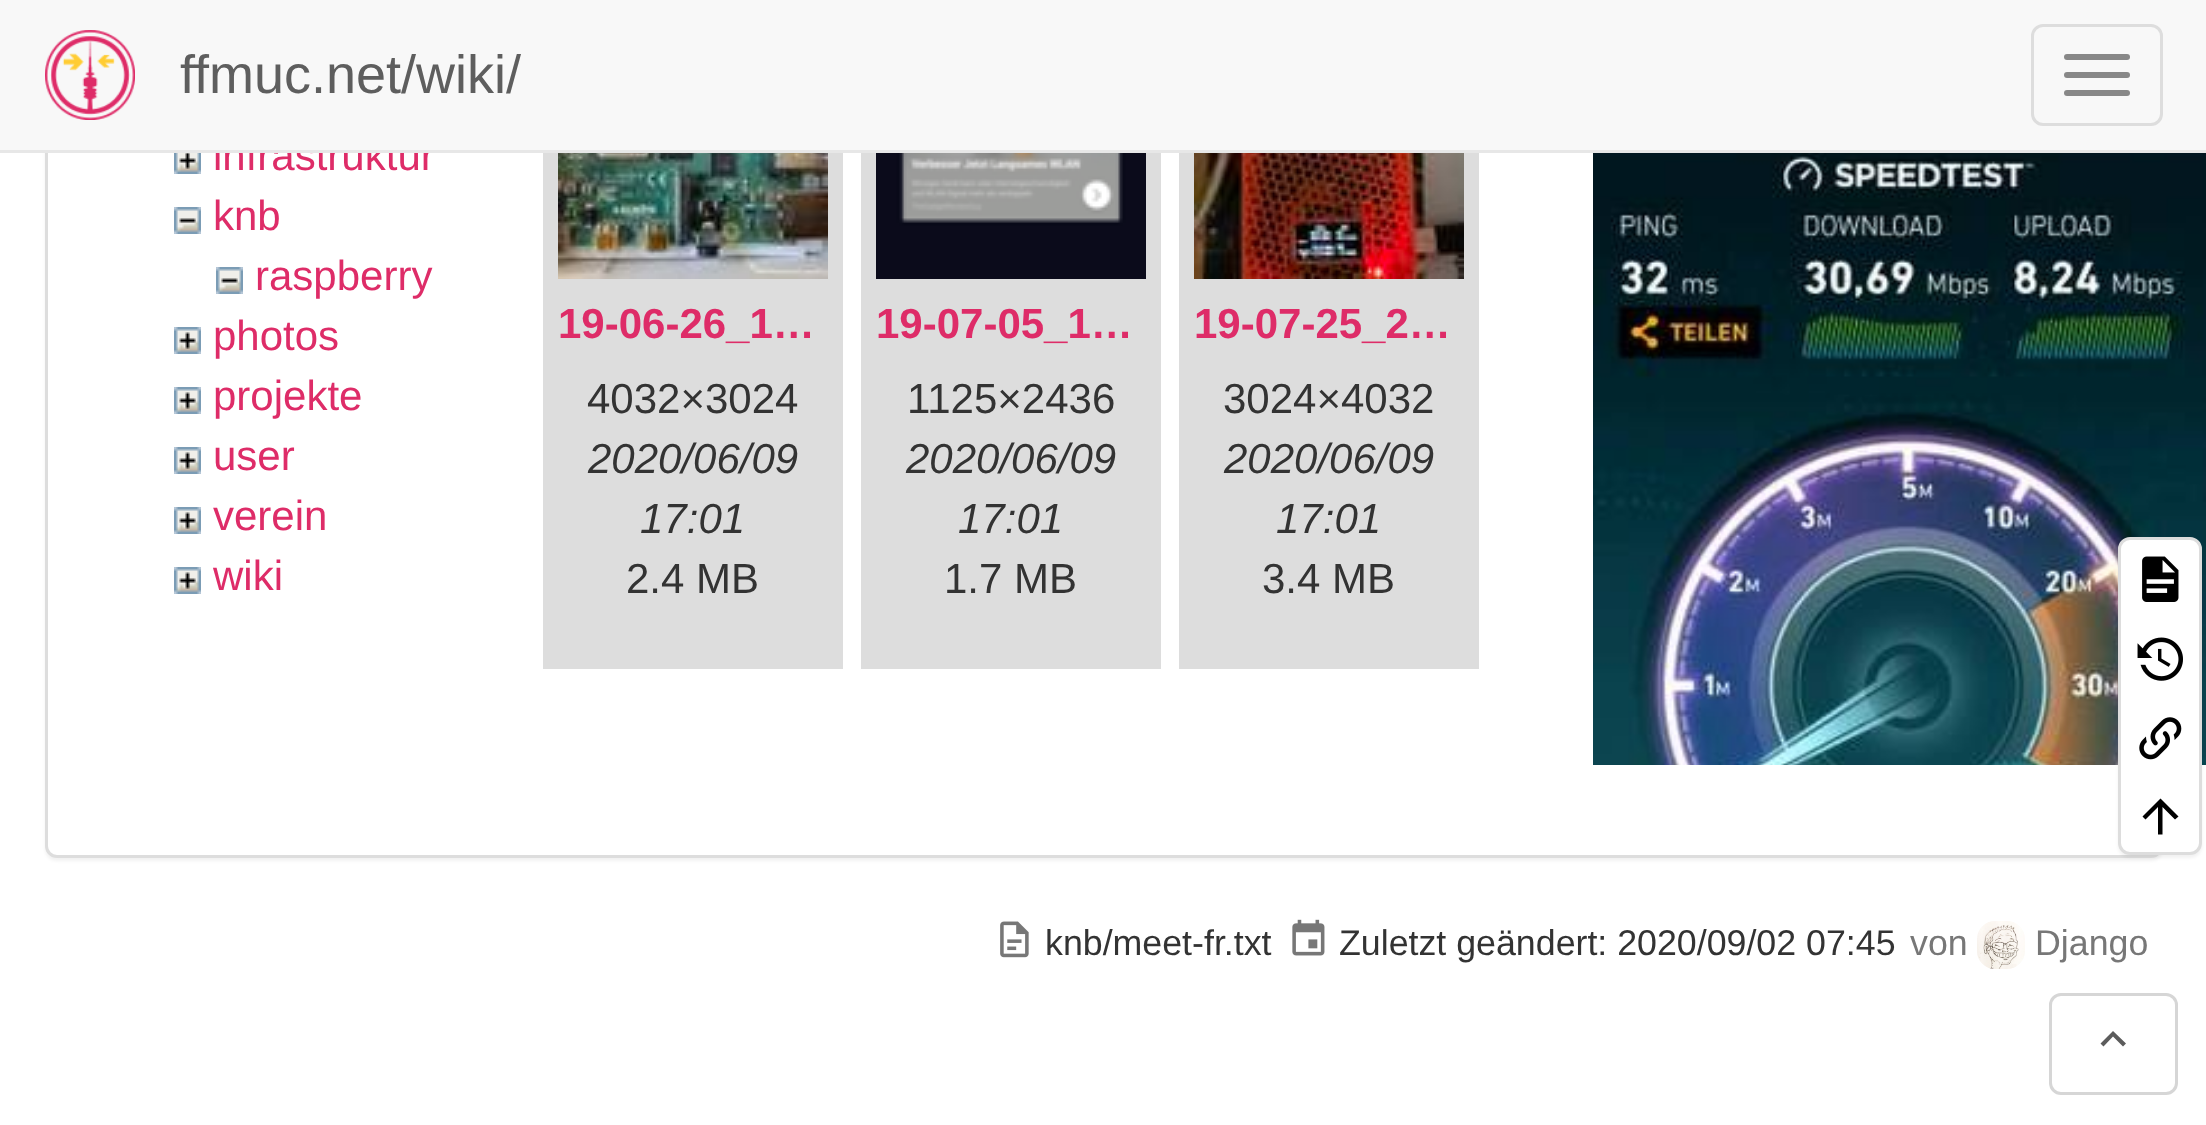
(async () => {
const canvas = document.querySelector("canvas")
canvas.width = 2206
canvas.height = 1125
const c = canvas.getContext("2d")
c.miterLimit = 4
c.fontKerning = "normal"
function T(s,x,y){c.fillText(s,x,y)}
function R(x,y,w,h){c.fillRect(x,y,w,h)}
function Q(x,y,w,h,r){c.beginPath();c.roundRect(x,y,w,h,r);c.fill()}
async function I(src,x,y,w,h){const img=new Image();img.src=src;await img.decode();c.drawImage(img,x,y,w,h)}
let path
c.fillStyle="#fff"
R(0,0,2206,1125)
c.fillStyle="#0000000d"
c.filter="blur(1.5px)"
c.beginPath()
c.roundRect(45,-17,2118,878,12)
c.fill()
c.filter="none"
c.fillStyle="#fff"
c.beginPath()
c.roundRect(46.5,-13.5,2115,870,10.5)
c.fill()
c.strokeStyle="#ddd"
c.lineWidth=3
c.stroke()
c.font="42px Liberation Sans"
c.fillStyle="#de2c68"
T("infrastruktur",213,170)
c.fillStyle="#f8f8f8"
R(0,0,2206,150)
c.fillStyle="#e7e7e7"
R(0,150,2206,3)
await I("1.png",45,30,90,90)
c.font="54px Liberation Sans"
c.fillStyle="#5e5e5e"
T("ffmuc.net/wiki/",180,93)
c.beginPath()
c.roundRect(2032.5,25.5,129,99,10.5)
c.stroke()
c.fillStyle="#888"
Q(2064,54,66,6,3)
Q(2064,72,66,6,3)
Q(2064,90,66,6,3)
await I("2.png",174,153,27,21)
await I("3.png",174,207,27,27)
c.font="42px Liberation Sans"
c.fillStyle="#de2c68"
T("knb",213,230)
await I("3.png",216,267,27,27)
T("raspberry",255,290)
await I("4.png",174,327,27,27)
T("photos",213,350)
await I("4.png",174,387,27,27)
T("projekte",213,410)
await I("4.png",174,447,27,27)
T("user",213,470)
await I("4.png",174,507,27,27)
T("verein",213,530)
await I("4.png",174,567,27,27)
T("wiki",213,590)
c.fillStyle="#ddd"
R(543,153,300,516)
await I("5.png",558,153,270,126)
c.font="bold 42px Liberation Sans"
c.fillStyle="#de2c68"
T("19-06-26_1…",558,338)
c.font="42px Liberation Sans"
c.fillStyle="#333"
T("4032×3024",587,413)
c.font="italic 42px Liberation Sans"
T("2020/06/09",588,473)
T("17:01",640,533)
c.font="42px Liberation Sans"
T("2.4 MB",626,593)
c.fillStyle="#ddd"
R(861,153,300,516)
await I("6.png",876,153,270,126)
c.font="bold 42px Liberation Sans"
c.fillStyle="#de2c68"
T("19-07-05_1…",876,338)
c.font="42px Liberation Sans"
c.fillStyle="#333"
T("1125×2436",907,413)
c.font="italic 42px Liberation Sans"
T("2020/06/09",906,473)
T("17:01",958,533)
c.font="42px Liberation Sans"
T("1.7 MB",944,593)
c.fillStyle="#ddd"
R(1179,153,300,516)
await I("7.png",1194,153,270,126)
c.font="bold 42px Liberation Sans"
c.fillStyle="#de2c68"
T("19-07-25_2…",1194,338)
c.font="42px Liberation Sans"
c.fillStyle="#333"
T("3024×4032",1223,413)
c.font="italic 42px Liberation Sans"
T("2020/06/09",1224,473)
T("17:01",1276,533)
c.font="42px Liberation Sans"
T("3.4 MB",1262,593)
await I("8.png",1593,153,613,612)
c.fillStyle="#0000000d"
c.filter="blur(1.5px)"
c.beginPath()
c.roundRect(2118,540,84,318,12)
c.fill()
c.filter="none"
c.fillStyle="#fff"
c.beginPath()
c.roundRect(2119.5,538.5,81,315,10.5)
c.fill()
c.stroke()
await I("9.png",2142,556,37,46)
await I("10.png",2137,637,46,44)
await I("11.png",2139,717,43,43)
c.fillStyle="#000"
path = new Path2D("M2162.5 834.5h-4.5v-27.5l-12.5 12.5l-3-3l18-18l18 18l-3.5 3l-12.5-12.5z")
c.fill(path)
await I("12.png",1000,921,29,37)
c.font="35.75px Liberation Sans"
c.fillStyle="#333"
T("knb/meet-fr.txt",1045,955)
await I("13.png",1292,919,33,37)
T("Zuletzt geändert: 2020/09/02 07:45",1339,955)
c.fillStyle="#777"
T("von",1910,955)
await I("14.png",1977,921,48,48)
T("Django",2035,955)
c.beginPath()
c.roundRect(2050.5,994.5,126,99,10.5)
c.strokeStyle="#d6d6d6"
c.stroke()
c.fillStyle="#5c5c5c"
path = new Path2D("M2103.5 1046.5l9.5-10l10 10l3-3l-13-12.5l-12.5 12.5z")
c.fill(path)
})()
